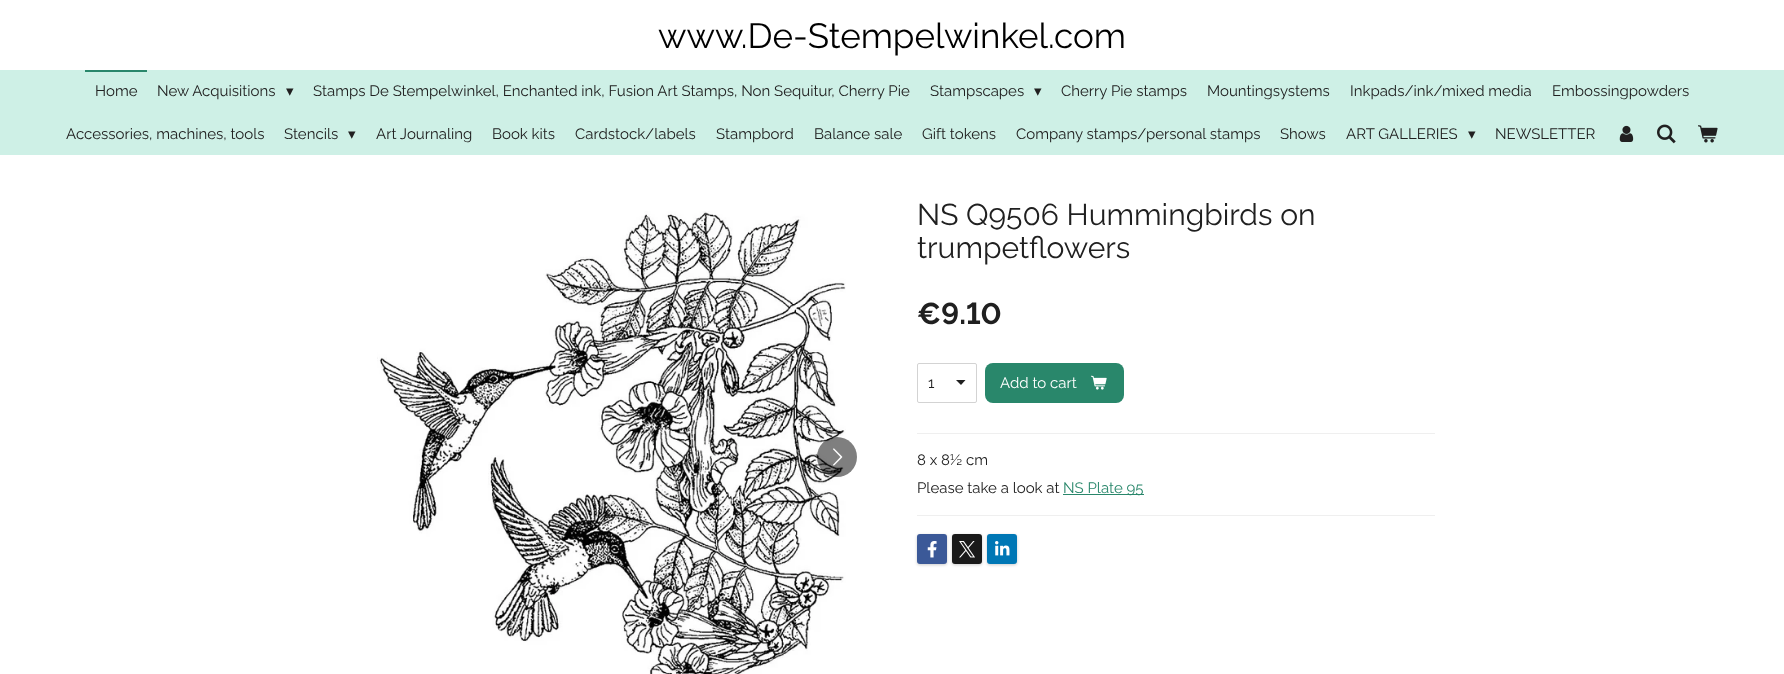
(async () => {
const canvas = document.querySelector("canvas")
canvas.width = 1784
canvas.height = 674
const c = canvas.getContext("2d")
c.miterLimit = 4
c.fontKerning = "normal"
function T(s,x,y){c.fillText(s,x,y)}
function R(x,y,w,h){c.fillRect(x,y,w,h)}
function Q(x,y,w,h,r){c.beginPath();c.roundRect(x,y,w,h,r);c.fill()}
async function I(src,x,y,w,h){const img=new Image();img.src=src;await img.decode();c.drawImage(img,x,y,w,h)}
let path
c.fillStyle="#fff"
R(0,0,1784,674)
c.font="35px Raleway"
c.fillStyle="#000"
T("www.De-Stempelwinkel.com",658,48)
c.fillStyle="#cef0e6"
R(0,70,1784,85)
c.fillStyle="#29876b"
R(85,70,62,2)
c.font="15px Raleway"
c.fillStyle="#202020"
T("Home",95,96)
T("New Acquisitions",157,96)
c.font="15px DejaVu Sans"
T("▾",286,96)
c.font="15px Raleway"
T("Stamps De Stempelwinkel, Enchanted ink, Fusion Art Stamps, Non Sequitur, Cherry Pie",313,96)
T("Stampscapes",930,96)
c.font="15px DejaVu Sans"
T("▾",1034,96)
c.font="15px Raleway"
T("Cherry Pie stamps",1061,96)
T("Mountingsystems",1207,96)
T("Inkpads/ink/mixed media",1350,96)
T("Embossingpowders",1552,96)
T("Accessories, machines, tools",66,139)
T("Stencils",284,139)
c.font="15px DejaVu Sans"
T("▾",348,139)
c.font="15px Raleway"
T("Art Journaling",376,139)
T("Book kits",492,139)
T("Cardstock/labels",575,139)
T("Stampbord",716,139)
T("Balance sale",814,139)
T("Gift tokens",922,139)
T("Company stamps/personal stamps",1016,139)
T("Shows",1280,139)
T("ART GALLERIES",1346,139)
c.font="15px DejaVu Sans"
T("▾",1468,139)
c.font="15px Raleway"
T("NEWSLETTER",1495,139)
await I("1.png",1619,125,15,17)
await I("2.png",1657,124,19,20)
await I("3.png",1698,125,20,18)
await I("4.png",377,211,469,463)
c.fillStyle="#00000080"
c.beginPath()
c.arc(837,457,20,0,7)
c.fill()
await I("5.png",833,448,10,18)
c.font="30px Raleway"
c.fillStyle="#202020"
T("NS Q9506 Hummingbirds on",917,225)
T("trumpetflowers",917,258)
c.font="bold 30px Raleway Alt"
T("€9.10",917,324)
path = new Path2D("M961 385l-5-5h9.5z")
c.fill(path)
c.beginPath()
c.roundRect(917.5,363.5,59,39,1.5)
c.strokeStyle="#d3d3d3"
c.stroke()
c.font="15px Raleway"
T("1",928,388)
c.fillStyle="#29876b"
Q(985,363,139,40,8)
c.fillStyle="#fff"
T("Add to cart",1000,388)
await I("6.png",1091,375,16,15)
c.fillStyle="#efefef"
R(917,433,518,1)
c.fillStyle="#202020"
T("8 x 8½ cm",917,465)
T("Please take a look at",917,493)
c.fillStyle="#29876b"
R(1063,494,81,1)
T("NS Plate 95",1063,493)
c.fillStyle="#efefef"
R(917,515,518,1)
c.fillStyle="#00000033"
c.filter="blur(1.5px)"
c.beginPath()
c.roundRect(917,535,30,30,3)
c.fill()
c.filter="none"
c.fillStyle="#3b5998"
Q(917,534,30,30,3)
await I("7.png",927,541,10,17)
c.fillStyle="#00000033"
c.filter="blur(1.5px)"
c.beginPath()
c.roundRect(952,535,30,30,3)
c.fill()
c.filter="none"
c.fillStyle="#1a1a1a"
Q(952,534,30,30,3)
await I("8.png",959,541,16,17)
c.fillStyle="#00000033"
c.filter="blur(1.5px)"
c.beginPath()
c.roundRect(987,535,30,30,3)
c.fill()
c.filter="none"
c.fillStyle="#0077b5"
Q(987,534,30,30,3)
await I("9.png",995,541,15,15)
})()
